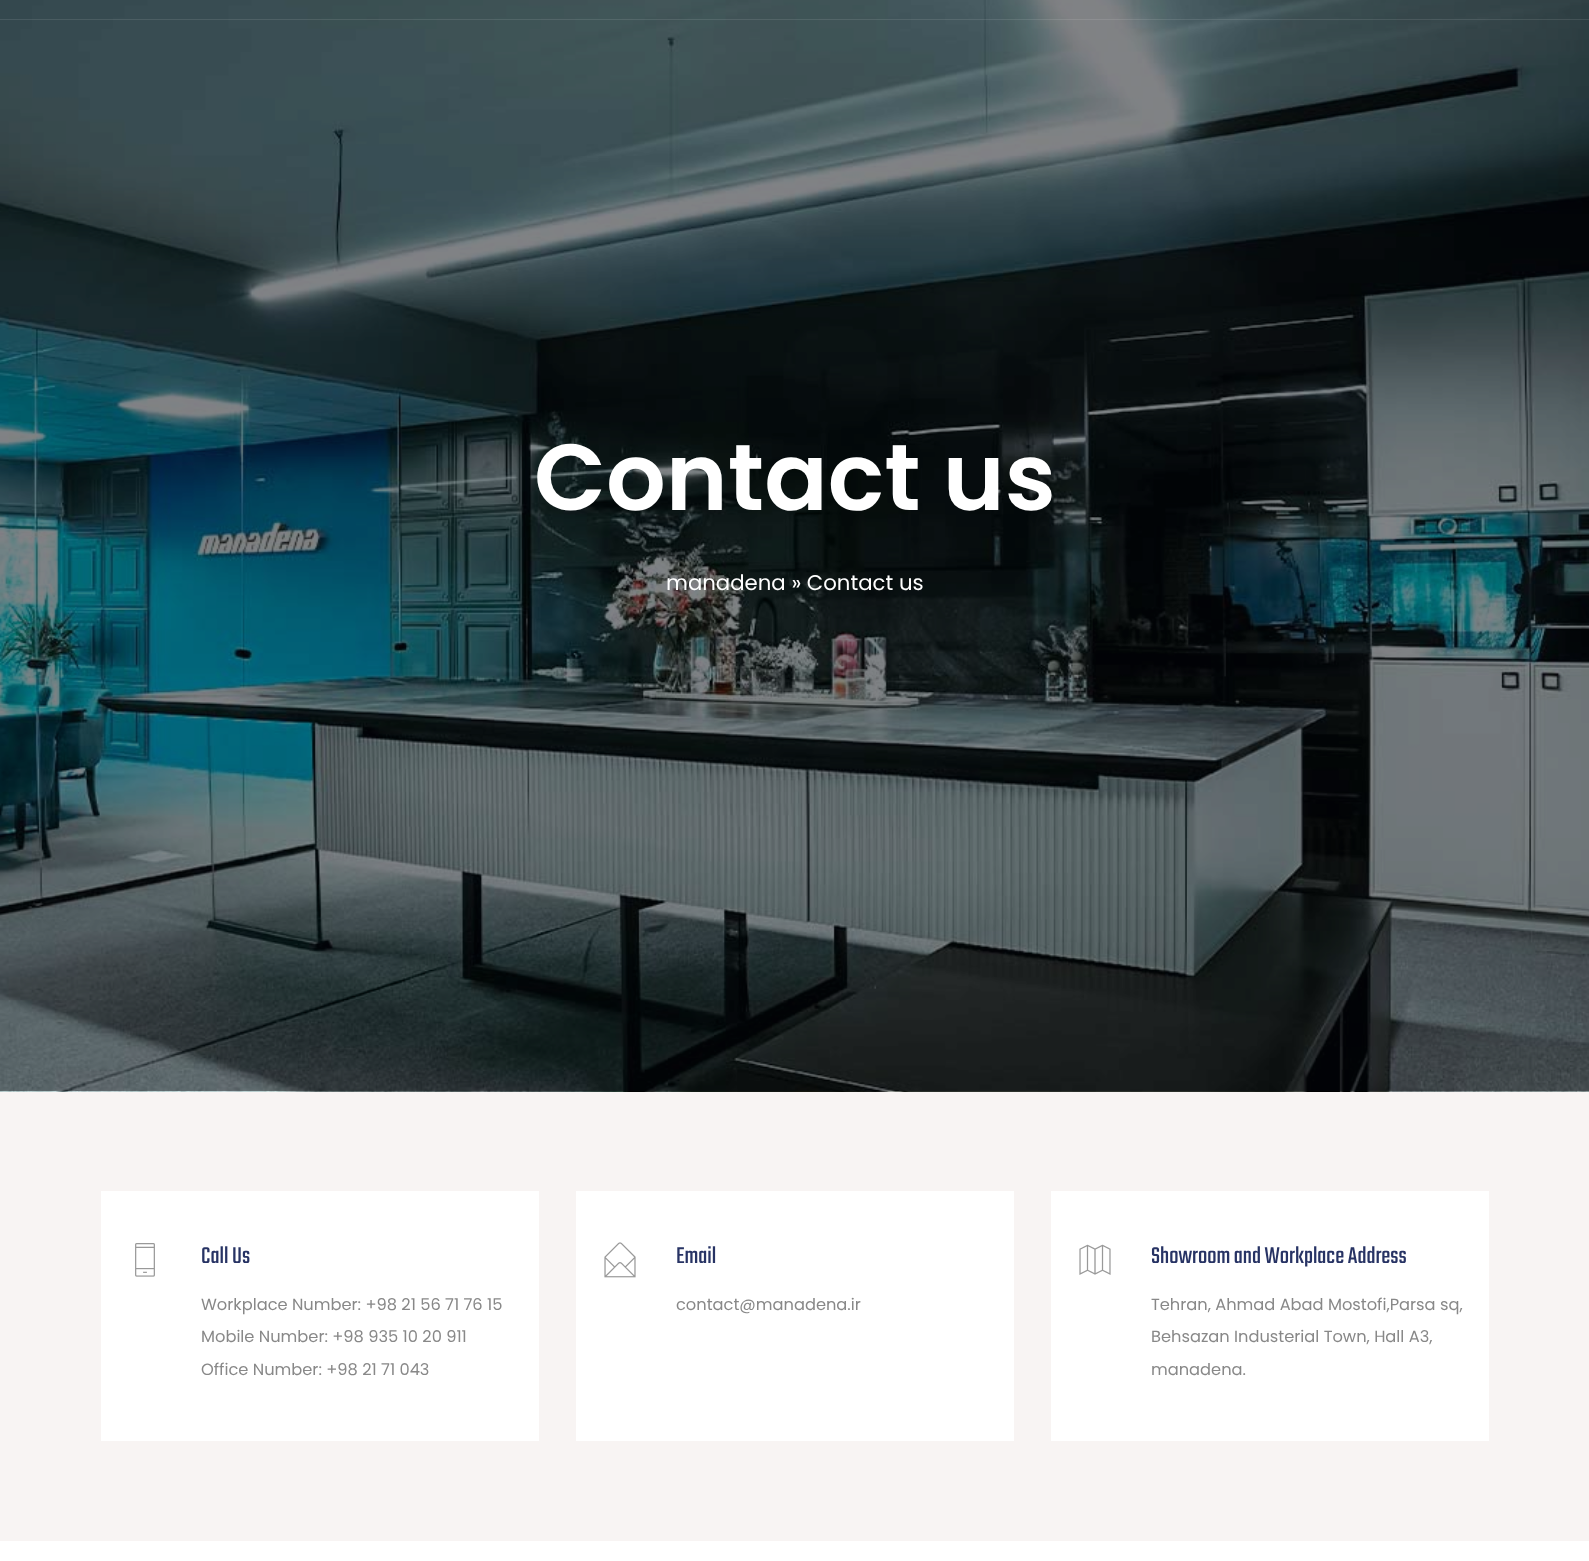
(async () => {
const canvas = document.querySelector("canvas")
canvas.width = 1589
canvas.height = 1561
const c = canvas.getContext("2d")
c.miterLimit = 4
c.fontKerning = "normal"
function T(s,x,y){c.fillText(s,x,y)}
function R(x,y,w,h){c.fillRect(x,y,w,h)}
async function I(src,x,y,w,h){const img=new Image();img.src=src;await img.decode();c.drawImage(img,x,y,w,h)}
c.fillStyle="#fff"
R(0,0,1589,1561)
await I("1.png",0,0,1589,1092)
c.fillStyle="#ffffff1a"
R(0,19,1589,1)
c.font="600 93.75px Poppins"
c.fillStyle="#fff"
T("Contact us",534,510)
c.font="21.25px Poppins"
T("manadena » Contact us",666,590)
c.fillStyle="#f8f4f3"
R(0,1092,1589,449)
c.fillStyle="#fff"
R(101,1191,438,250)
await I("2.png",135,1243,20,34)
c.font="25px Teko"
c.fillStyle="#273364"
T("Call Us",201,1263)
c.font="16.25px Poppins"
c.fillStyle="#888"
T("Workplace Number: +98 21 56 71 76 15",201,1310)
T("Mobile Number: +98 935 10 20 911",201,1342)
T("Office Number: +98 21 71 043",201,1375)
c.fillStyle="#fff"
R(576,1191,438,250)
await I("3.png",604,1242,32,36)
c.font="25px Teko"
c.fillStyle="#273364"
T("Email",676,1263)
c.font="16.25px Poppins"
c.fillStyle="#888"
T("contact@manadena.ir",676,1310)
c.fillStyle="#fff"
R(1051,1191,438,250)
await I("4.png",1079,1244,32,31)
c.font="25px Teko"
c.fillStyle="#273364"
T("Showroom and Workplace Address",1151,1263)
c.font="16.25px Poppins"
c.fillStyle="#888"
T("Tehran, Ahmad Abad Mostofi,Parsa sq,",1151,1310)
T("Behsazan Industerial Town, Hall A3,",1151,1342)
T("manadena.",1151,1375)
})()
